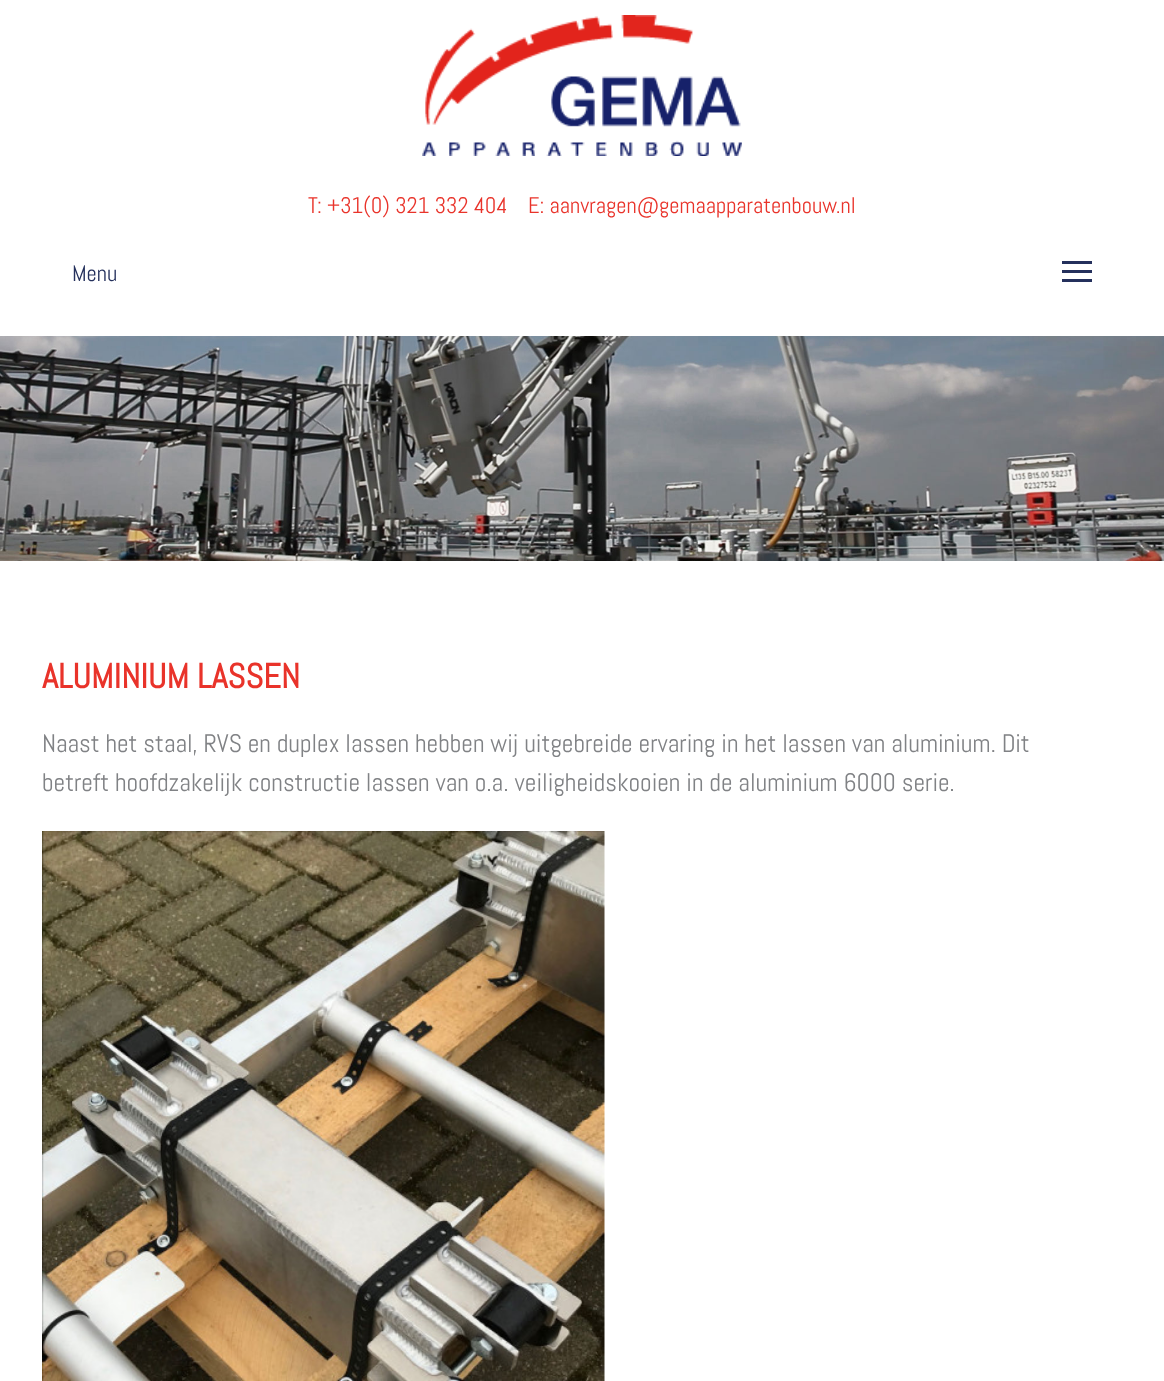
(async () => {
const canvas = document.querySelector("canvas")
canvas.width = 1164
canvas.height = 1381
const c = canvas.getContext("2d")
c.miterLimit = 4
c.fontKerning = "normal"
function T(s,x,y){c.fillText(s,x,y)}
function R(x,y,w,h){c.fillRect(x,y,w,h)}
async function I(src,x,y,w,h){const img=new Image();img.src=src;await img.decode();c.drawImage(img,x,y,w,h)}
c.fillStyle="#fff"
R(0,0,1164,1381)
await I("1.png",422,15,320,141)
c.font="22.5px Abel"
c.fillStyle="#e9332a"
T("T: +31(0) 321 332 404",308,213)
T("E: aanvragen@gemaapparatenbouw.nl",528,213)
c.fillStyle="#24305c"
T("Menu",72,281)
R(1062,261,30,3)
R(1062,270,30,3)
R(1062,279,30,3)
await I("2.png",0,336,1164,225)
c.font="bold 34.5px Abel"
c.fillStyle="#e9332a"
T("ALUMINIUM LASSEN",42,688)
c.font="25.5px Abel"
c.fillStyle="#808285"
T("Naast het staal, RVS en duplex lassen hebben wij uitgebreide ervaring in het lassen van aluminium. Dit",42,752)
T("betreft hoofdzakelijk constructie lassen van o.a. veiligheidskooien in de aluminium 6000 serie.",42,791)
await I("3.png",42,831,563,550)
})()
